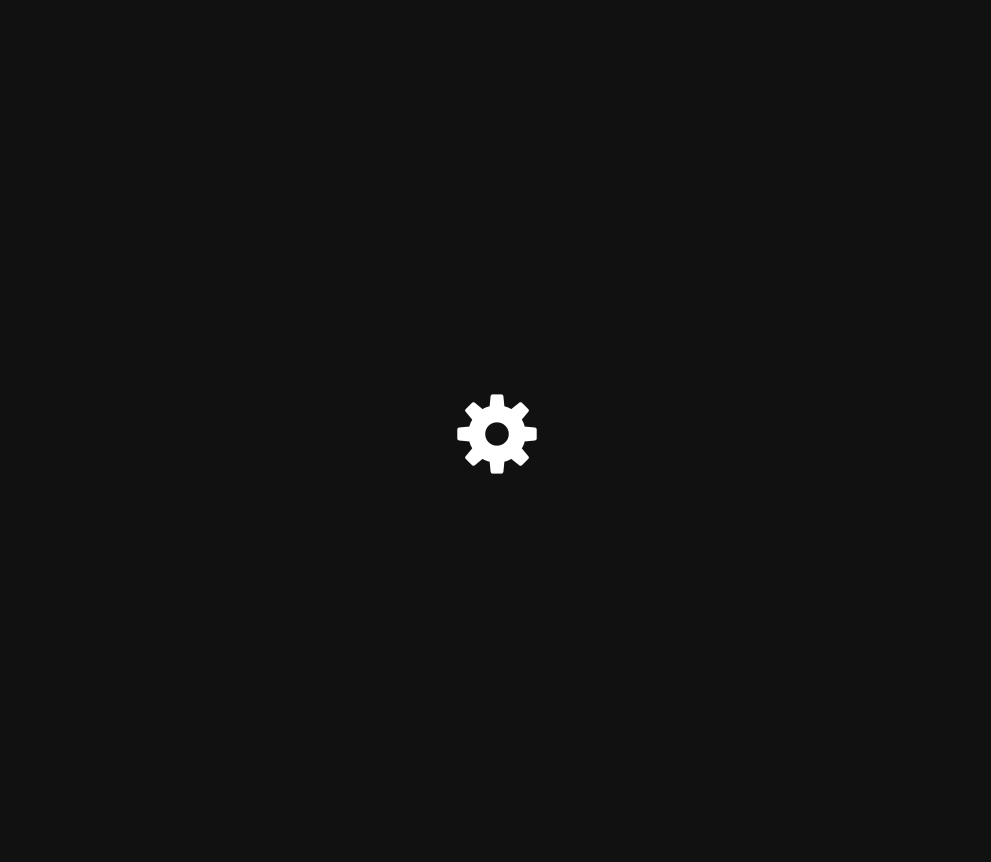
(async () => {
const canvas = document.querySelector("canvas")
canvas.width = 991
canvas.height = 862
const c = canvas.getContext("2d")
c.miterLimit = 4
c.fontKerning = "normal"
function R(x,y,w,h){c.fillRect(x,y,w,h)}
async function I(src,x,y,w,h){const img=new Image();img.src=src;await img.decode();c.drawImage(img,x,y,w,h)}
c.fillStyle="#111"
R(0,0,991,862)
await I("1.png",457,394,80,80)
})()
